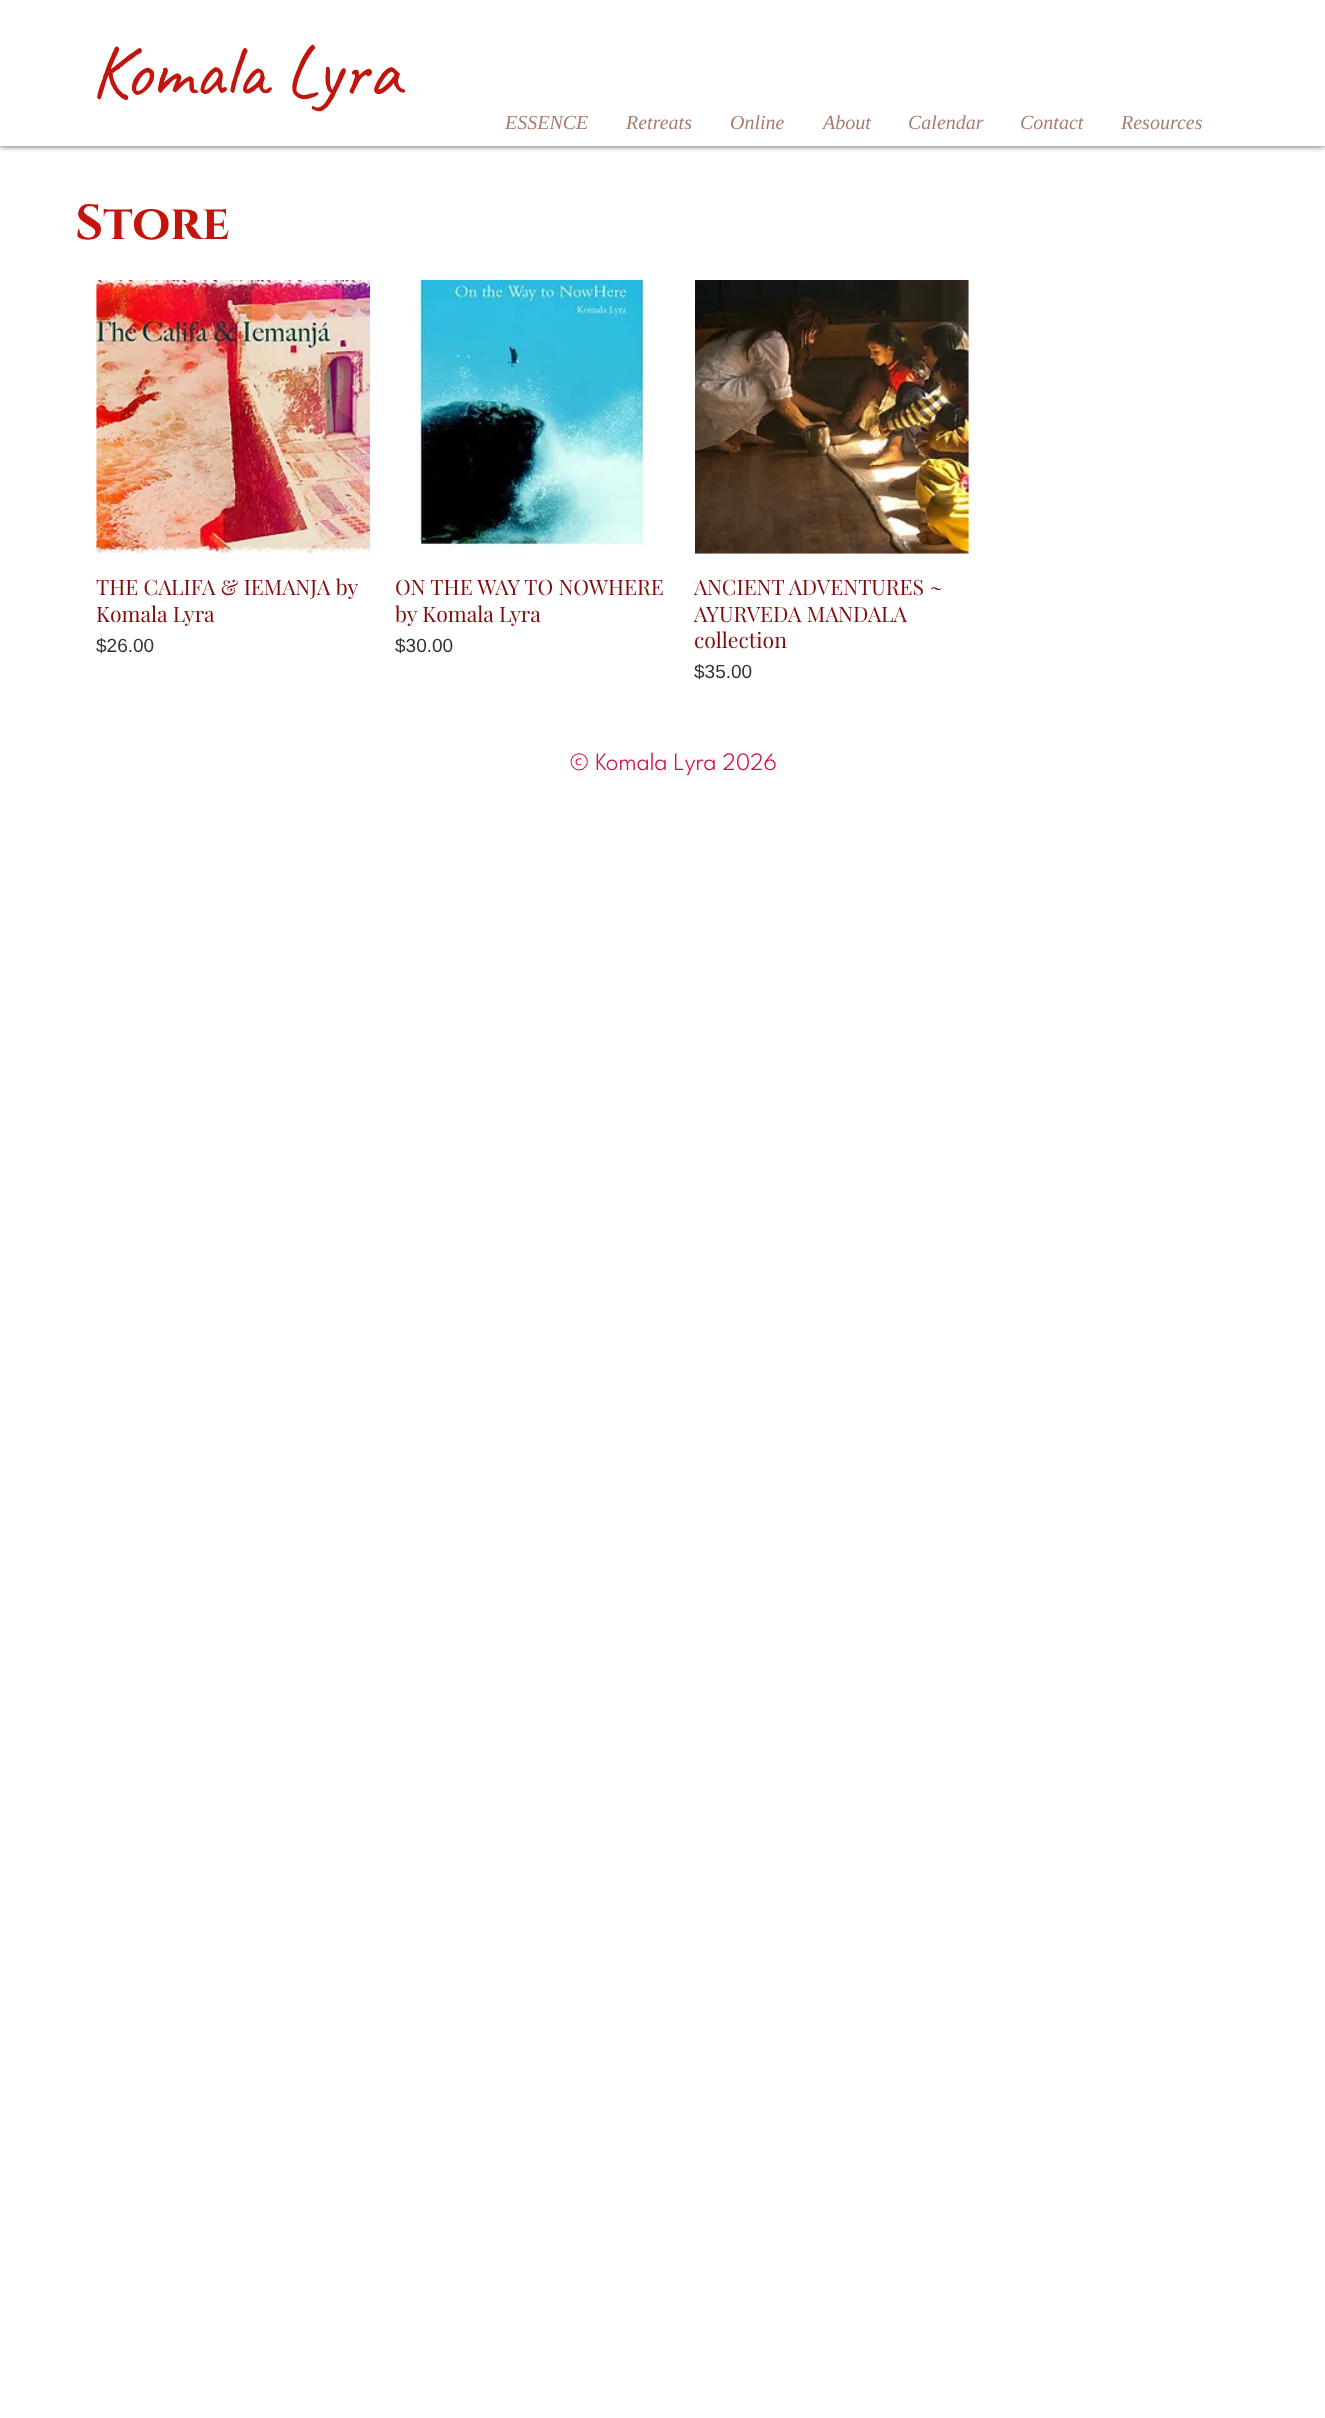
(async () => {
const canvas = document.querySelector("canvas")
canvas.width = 1325
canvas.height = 2418
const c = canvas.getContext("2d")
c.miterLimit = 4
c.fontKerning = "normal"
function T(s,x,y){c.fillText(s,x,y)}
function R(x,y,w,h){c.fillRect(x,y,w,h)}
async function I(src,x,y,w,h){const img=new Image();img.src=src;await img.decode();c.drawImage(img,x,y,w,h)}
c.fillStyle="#fff"
R(0,0,1325,2418)
c.save()
c.beginPath()
c.rect(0,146,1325,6)
c.clip()
c.fillStyle="#000000b3"
c.filter="blur(3px)"
c.beginPath()
c.rect(0,0,1325,146)
c.fill()
c.filter="none"
c.restore()
c.font="75px Caveat"
c.fillStyle="#c2150d"
T("Komala Lyra",91,96)
c.font="italic 20px Liberation Serif"
c.fillStyle="#a97d6c"
T("ESSENCE",505,129)
T("Retreats",626,129)
T("Online",730,129)
T("About",823,129)
T("Calendar",908,129)
T("Contact",1020,129)
T("Resources",1121,129)
c.font="bold 49px Cinzel"
c.fillStyle="#c2150d"
T("Store",75,239)
await I("1.png",96,280,274,274)
c.font="21.25px Playfair Display"
c.fillStyle="#800d0d"
T("THE CALIFA & IEMANJA by",96,595)
T("Komala Lyra",96,622)
c.font="19px Liberation Sans"
c.fillStyle="#333"
T("$26.00",96,652)
await I("2.png",415,280,235,270)
c.font="21.25px Playfair Display"
c.fillStyle="#800d0d"
T("ON THE WAY TO NOWHERE",395,595)
T("by Komala Lyra",395,622)
c.font="19px Liberation Sans"
c.fillStyle="#333"
T("$30.00",395,652)
await I("3.png",695,280,274,274)
c.font="21.25px Playfair Display"
c.fillStyle="#800d0d"
T("ANCIENT ADVENTURES ~",694,595)
T("AYURVEDA MANDALA",694,622)
T("collection",694,648)
c.font="19px Liberation Sans"
c.fillStyle="#333"
T("$35.00",694,678)
c.font="100 25px League Spartan"
c.fillStyle="#d61043"
T("© Komala Lyra 2026",570,770)
})()
